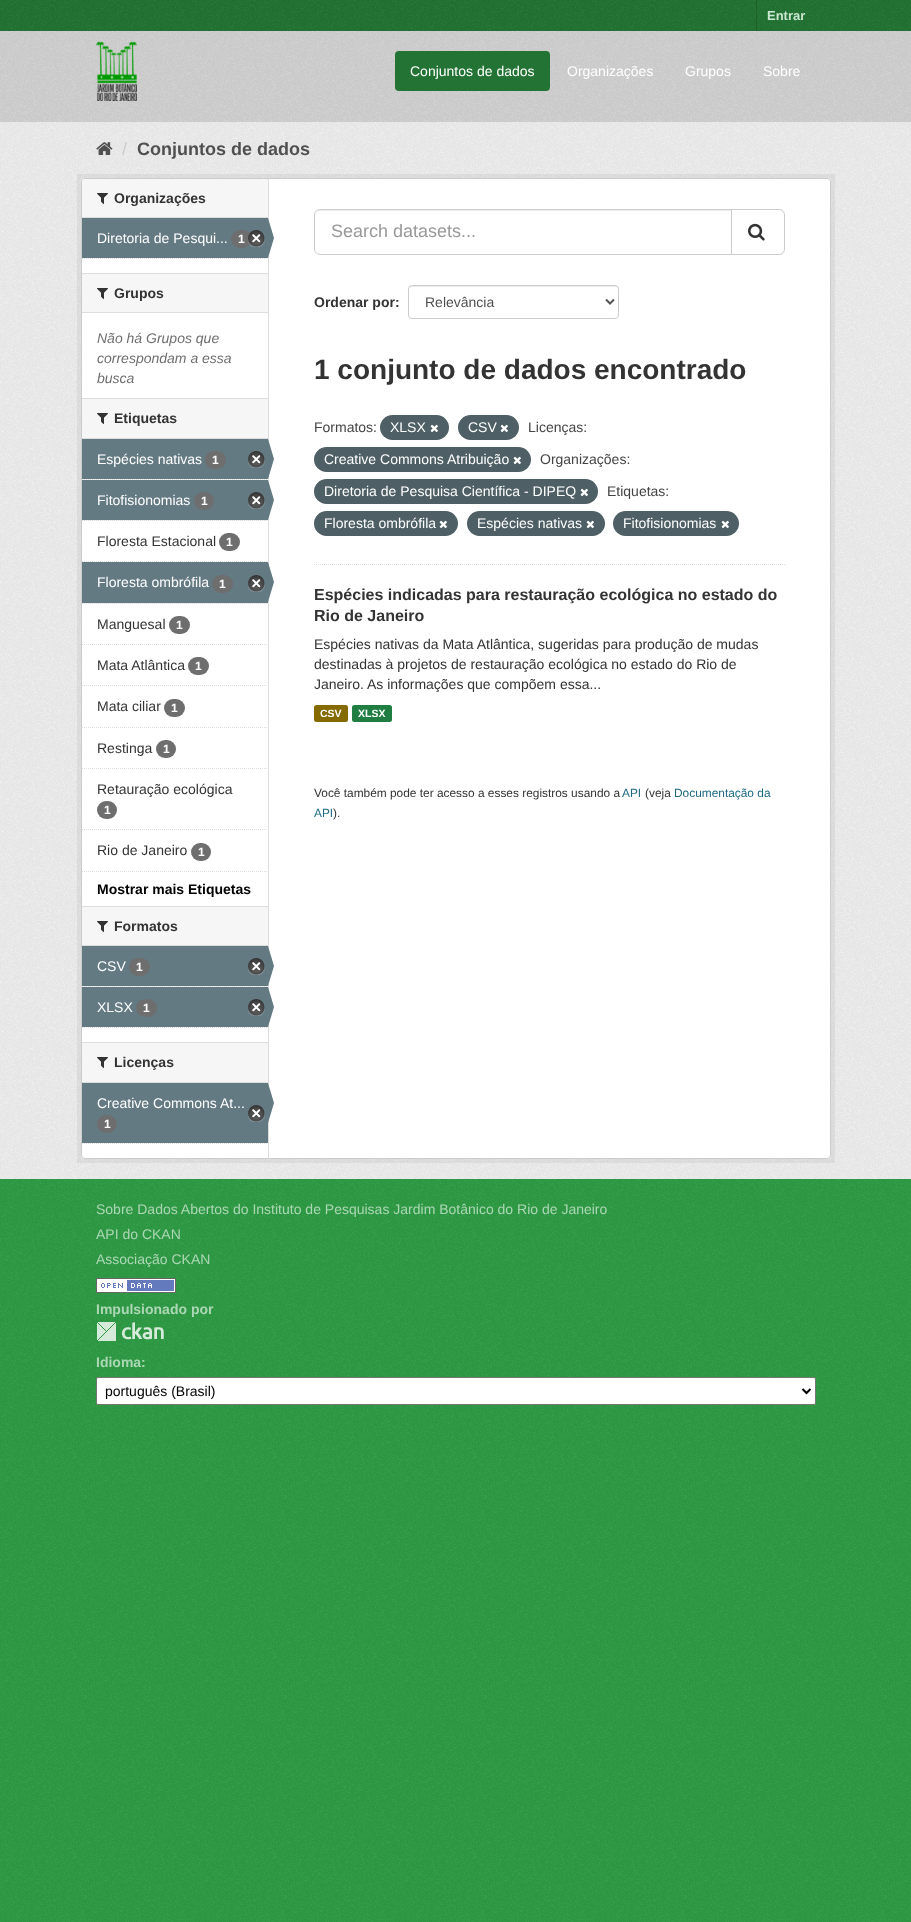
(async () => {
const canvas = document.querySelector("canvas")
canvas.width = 911
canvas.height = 1922
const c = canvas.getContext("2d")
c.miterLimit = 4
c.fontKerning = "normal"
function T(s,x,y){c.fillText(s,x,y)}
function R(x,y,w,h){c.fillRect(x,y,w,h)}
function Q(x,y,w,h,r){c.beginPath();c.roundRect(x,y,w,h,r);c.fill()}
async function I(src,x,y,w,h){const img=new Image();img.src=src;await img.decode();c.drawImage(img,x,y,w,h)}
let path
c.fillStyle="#2f9b45"
R(0,0,911,1922)
await I("1.png",0,1425,911,497)
c.fillStyle="#237434"
R(0,0,911,31)
await I("2.png",0,0,911,31)
c.fillStyle="#1d602b"
R(756,0,1,31)
c.font="bold 13px Liberation Sans"
c.fillStyle="#cbe6d1"
T("Entrar",767,20)
c.fillStyle="#d1d1d1"
R(0,31,911,91)
await I("3.png",0,31,911,91)
await I("4.png",96,41,41,60)
c.fillStyle="#237434"
Q(395,51,155,40,4)
c.font="14px Liberation Sans"
c.fillStyle="#fff"
T("Conjuntos de dados",410,76)
T("Organizações",567,76)
T("Grupos",685,76)
T("Sobre",763,76)
c.fillStyle="#eee"
R(0,122,911,1057)
await I("5.png",0,122,911,1057)
await I("6.png",96,142,17,13)
c.font="18px Liberation Sans"
c.fillStyle="#ccc"
T("/",122,155)
c.font="bold 18px Liberation Sans"
c.fillStyle="#505050"
T("Conjuntos de dados",137,155)
c.strokeStyle="#0000000d"
c.lineWidth=4
c.strokeRect(79,176,754,985)
c.fillStyle="#fff"
c.beginPath()
c.roundRect(81.5,178.5,749,980,3.5)
c.fill()
c.strokeStyle="#ccc"
c.lineWidth=1
c.stroke()
c.fillStyle="#f6f6f6"
c.beginPath()
c.roundRect(82,179,186,39,[3,0,0,0])
c.fill()
c.fillStyle="#ddd"
R(82,217,186,1)
await I("7.png",97,193,11,11)
c.font="bold 14px Liberation Sans"
c.fillStyle="#333"
T("Organizações",114,203)
c.fillStyle="#647a82"
R(82,218,186,40)
c.font="14px Liberation Sans"
c.fillStyle="#fff"
T("Diretoria de Pesqui...",97,243)
c.fillStyle="#6e6e6e"
Q(231,230,21,18,9)
c.font="bold 12px Liberation Sans"
c.fillStyle="#fff"
T("1",238,243)
await I("8.png",248,230,17,17)
c.fillStyle="#ddd"
R(268,179,1,979)
c.fillStyle="#647a82"
path = new Path2D("M268 258v-40l6 20z")
c.fill(path)
path = new Path2D("M82 258.5h186")
c.strokeStyle="#ddd"
c.setLineDash([1,1])
c.stroke(path)
c.fillStyle="#f6f6f6"
R(82,274,186,38)
c.fillStyle="#ddd"
R(82,273,186,1)
R(82,312,186,1)
await I("7.png",97,288,11,11)
c.font="bold 14px Liberation Sans"
c.fillStyle="#333"
T("Grupos",114,298)
c.font="italic 14px Liberation Sans"
c.fillStyle="#6e6e6e"
T("Não há Grupos que",97,343)
T("correspondam a essa",97,363)
T("busca",97,383)
c.fillStyle="#f6f6f6"
R(82,399,186,39)
c.fillStyle="#ddd"
R(82,398,186,1)
R(82,438,186,1)
await I("7.png",97,413,11,11)
c.font="bold 14px Liberation Sans"
c.fillStyle="#333"
T("Etiquetas",114,423)
c.fillStyle="#f6f6f6"
R(83,479,185,1)
path = new Path2D("M82 479.5h186")
c.stroke(path)
c.fillStyle="#647a82"
R(82,439,186,40)
c.font="14px Liberation Sans"
c.fillStyle="#fff"
T("Espécies nativas",97,464)
c.fillStyle="#6e6e6e"
Q(205,451,21,18,9)
c.font="bold 12px Liberation Sans"
c.fillStyle="#fff"
T("1",212,464)
await I("9.png",248,451,17,17)
c.fillStyle="#647a82"
path = new Path2D("M268 479v-40l6 20z")
c.fill(path)
c.fillStyle="#f6f6f6"
R(83,520,185,1)
path = new Path2D("M82 520.5h186")
c.stroke(path)
c.fillStyle="#647a82"
R(82,480,186,40)
c.font="14px Liberation Sans"
c.fillStyle="#fff"
T("Fitofisionomias",97,505)
c.fillStyle="#6e6e6e"
Q(194,492,20,18,9)
c.font="bold 12px Liberation Sans"
c.fillStyle="#fff"
T("1",201,505)
await I("9.png",248,492,17,17)
c.fillStyle="#647a82"
path = new Path2D("M268 520v-40l6 20z")
c.fill(path)
path = new Path2D("M82 561.5h186")
c.stroke(path)
c.font="14px Liberation Sans"
c.fillStyle="#333"
T("Floresta Estacional",97,546)
c.fillStyle="#6e6e6e"
Q(219,533,21,18,9)
c.font="bold 12px Liberation Sans"
c.fillStyle="#fff"
T("1",226,546)
c.fillStyle="#f6f6f6"
R(83,603,185,1)
path = new Path2D("M82 603.5h186")
c.stroke(path)
c.fillStyle="#647a82"
R(82,562,186,41)
c.font="14px Liberation Sans"
c.fillStyle="#fff"
T("Floresta ombrófila",97,587)
c.fillStyle="#6e6e6e"
Q(212,575,21,18,9)
c.font="bold 12px Liberation Sans"
c.fillStyle="#fff"
T("1",219,588)
await I("9.png",248,575,17,17)
c.fillStyle="#647a82"
path = new Path2D("M268 602v-40l6 20z")
c.fill(path)
path = new Path2D("M82 644.5h186")
c.stroke(path)
c.font="14px Liberation Sans"
c.fillStyle="#333"
T("Manguesal",97,629)
c.fillStyle="#6e6e6e"
Q(169,616,21,18,9)
c.font="bold 12px Liberation Sans"
c.fillStyle="#fff"
T("1",176,629)
path = new Path2D("M82 685.5h186")
c.stroke(path)
c.font="14px Liberation Sans"
c.fillStyle="#333"
T("Mata Atlântica",97,670)
c.fillStyle="#6e6e6e"
Q(188,657,21,18,9)
c.font="bold 12px Liberation Sans"
c.fillStyle="#fff"
T("1",195,670)
path = new Path2D("M82 727.5h186")
c.stroke(path)
c.font="14px Liberation Sans"
c.fillStyle="#333"
T("Mata ciliar",97,711)
c.fillStyle="#6e6e6e"
Q(164,699,21,18,9)
c.font="bold 12px Liberation Sans"
c.fillStyle="#fff"
T("1",171,712)
path = new Path2D("M82 768.5h186")
c.stroke(path)
c.font="14px Liberation Sans"
c.fillStyle="#333"
T("Restinga",97,753)
c.fillStyle="#6e6e6e"
Q(156,740,20,18,9)
c.font="bold 12px Liberation Sans"
c.fillStyle="#fff"
T("1",163,753)
path = new Path2D("M82 829.5h186")
c.stroke(path)
c.font="14px Liberation Sans"
c.fillStyle="#333"
T("Retauração ecológica",97,794)
c.fillStyle="#6e6e6e"
Q(97,801,20,18,9)
c.font="bold 12px Liberation Sans"
c.fillStyle="#fff"
T("1",104,814)
c.font="14px Liberation Sans"
c.fillStyle="#333"
T("Rio de Janeiro",97,855)
c.fillStyle="#6e6e6e"
Q(191,843,20,18,9)
c.font="bold 12px Liberation Sans"
c.fillStyle="#fff"
T("1",198,856)
path = new Path2D("M82 871.5h186")
c.stroke(path)
c.font="bold 14px Liberation Sans"
c.fillStyle="#000"
T("Mostrar mais Etiquetas",97,894)
c.fillStyle="#f6f6f6"
R(82,907,186,38)
c.fillStyle="#ddd"
R(82,906,186,1)
R(82,945,186,1)
await I("7.png",97,921,11,11)
c.fillStyle="#333"
T("Formatos",114,931)
c.fillStyle="#f6f6f6"
R(83,986,185,1)
path = new Path2D("M82 986.5h186")
c.stroke(path)
c.fillStyle="#647a82"
R(82,946,186,40)
c.font="14px Liberation Sans"
c.fillStyle="#fff"
T("CSV",97,971)
c.fillStyle="#6e6e6e"
Q(129,958,21,18,9)
c.font="bold 12px Liberation Sans"
c.fillStyle="#fff"
T("1",136,971)
await I("9.png",248,958,17,17)
c.fillStyle="#647a82"
path = new Path2D("M268 986v-40l6 20z")
c.fill(path)
R(82,987,186,40)
c.font="14px Liberation Sans"
c.fillStyle="#fff"
T("XLSX",97,1012)
c.fillStyle="#6e6e6e"
Q(136,999,21,18,9)
c.font="bold 12px Liberation Sans"
c.fillStyle="#fff"
T("1",143,1012)
await I("9.png",248,999,17,17)
c.fillStyle="#647a82"
path = new Path2D("M268 1027v-40l6 20z")
c.fill(path)
path = new Path2D("M82 1027.5h186")
c.stroke(path)
c.fillStyle="#f6f6f6"
R(82,1043,186,39)
c.fillStyle="#ddd"
R(82,1042,186,1)
R(82,1082,186,1)
await I("7.png",97,1057,11,11)
c.font="bold 14px Liberation Sans"
c.fillStyle="#333"
T("Licenças",114,1067)
c.fillStyle="#647a82"
R(82,1083,186,60)
c.font="14px Liberation Sans"
c.fillStyle="#fff"
T("Creative Commons At...",97,1108)
c.fillStyle="#647a82"
path = new Path2D("M268 1123v-40l6 20z")
c.fill(path)
await I("9.png",248,1105,17,17)
c.fillStyle="#6e6e6e"
Q(97,1115,20,18,9)
c.font="bold 12px Liberation Sans"
c.fillStyle="#fff"
T("1",104,1128)
path = new Path2D("M82 1143.5h186")
c.stroke(path)
path = new Path2D("M314 564.5h471")
c.stroke(path)
c.fillStyle="#ececec"
path = new Path2D("M320 211h411v-1h-411c-3 0-5 3-5 6c0-3 2-5 5-5z")
c.fill(path)
c.beginPath()
c.roundRect(314.5,209.5,417,45,[5.5,0,0,5.5])
c.strokeStyle="#ccc"
c.setLineDash([])
c.stroke()
c.font="18px Liberation Sans"
c.fillStyle="#999"
T("Search datasets...",331,237)
c.fillStyle="#fff"
c.beginPath()
c.roundRect(731.5,209.5,53,45,[0,5.5,5.5,0])
c.fill()
c.stroke()
await I("10.png",748,223,17,18)
c.font="bold 14px Liberation Sans"
c.fillStyle="#333"
T("Ordenar por:",314,307)
c.fillStyle="#ececec"
path = new Path2D("M412 287h203c2 0 3 1 3 3v-1c0-2-1-3-3-3h-203c-2 0-3 1-3 3v1c0-2 1-3 3-3z")
c.fill(path)
c.beginPath()
c.roundRect(408.5,285.5,210,33,3.5)
c.stroke()
path = new Path2D("M606 299.5l4 4l4-4")
c.strokeStyle="#555"
c.lineWidth=2
c.stroke(path)
c.font="14px Liberation Sans"
c.fillStyle="#505050"
T("Relevância",425,307)
c.font="bold 28px Liberation Sans"
c.fillStyle="#333"
T("1 conjunto de dados encontrado",314,379)
c.font="14px Liberation Sans"
c.fillStyle="#444"
T("Formatos:",314,432)
c.fillStyle="#4e5f65"
Q(380,415,69,25,12.5)
c.fillStyle="#fff"
T("XLSX",390,432)
await I("11.png",430,424,8,9)
c.fillStyle="#4e5f65"
Q(458,415,61,25,12.5)
c.fillStyle="#fff"
T("CSV",468,432)
await I("11.png",500,424,8,9)
c.fillStyle="#444"
T("Licenças:",528,432)
c.fillStyle="#4e5f65"
Q(314,447,217,25,12.5)
c.fillStyle="#fff"
T("Creative Commons Atribuição",324,464)
await I("11.png",513,456,8,9)
c.fillStyle="#444"
T("Organizações:",540,464)
c.fillStyle="#4e5f65"
Q(314,479,284,25,12.5)
c.fillStyle="#fff"
T("Diretoria de Pesquisa Científica - DIPEQ",324,496)
await I("11.png",580,488,8,9)
c.fillStyle="#444"
T("Etiquetas:",607,496)
c.fillStyle="#4e5f65"
Q(314,511,144,25,12.5)
c.fillStyle="#fff"
T("Floresta ombrófila",324,528)
await I("11.png",439,520,8,9)
c.fillStyle="#4e5f65"
Q(467,511,138,25,12.5)
c.fillStyle="#fff"
T("Espécies nativas",477,528)
await I("11.png",586,520,8,9)
c.fillStyle="#4e5f65"
Q(613,511,126,25,12.5)
c.fillStyle="#fff"
T("Fitofisionomias",623,528)
await I("11.png",721,520,8,9)
c.font="bold 16px Liberation Sans"
c.fillStyle="#333"
T("Espécies indicadas para restauração ecológica no estado do",314,600)
T("Rio de Janeiro",314,621)
c.font="14px Liberation Sans"
T("Espécies nativas da Mata Atlântica, sugeridas para produção de mudas",314,649)
T("destinadas à projetos de restauração ecológica no estado do Rio de",314,669)
T("Janeiro. As informações que compõem essa...",314,689)
c.fillStyle="#856a00"
Q(314,705,34,17,2.5)
c.font="bold 10.5px Liberation Sans"
c.fillStyle="#fff"
T("CSV",320,717)
c.fillStyle="#207e42"
Q(352,705,40,17,2.5)
c.fillStyle="#fff"
T("XLSX",358,717)
c.font="11.9px Liberation Sans"
c.fillStyle="#333"
T("Você também pode ter acesso a esses registros usando a",314,797)
c.fillStyle="#206b82"
T("API",622,797)
c.fillStyle="#333"
T("(veja",645,797)
c.fillStyle="#206b82"
T("Documentação da",674,797)
T("API",314,817)
c.fillStyle="#333"
T(").",333,817)
await I("12.png",0,1179,911,246)
c.font="14px Liberation Sans"
c.fillStyle="#acd7b5"
T("Sobre Dados Abertos do Instituto de Pesquisas Jardim Botânico do Rio de Janeiro",96,1214)
T("API do CKAN",96,1239)
T("Associação CKAN",96,1264)
await I("13.png",96,1278,80,15)
c.font="bold 14px Liberation Sans"
T("Impulsionado por",96,1314)
await I("14.png",97,1322,67,19)
T("Idioma:",96,1367)
c.fillStyle="#fff"
c.beginPath()
c.roundRect(96.5,1377.5,719,27,1.5)
c.fill()
c.strokeStyle="#767676"
c.lineWidth=1
c.stroke()
path = new Path2D("M802.5 1389l4 4l4-4")
c.strokeStyle="#000"
c.lineWidth=2
c.stroke(path)
c.font="14px Liberation Sans"
c.fillStyle="#000"
T("português (Brasil)",105,1396)
})()
